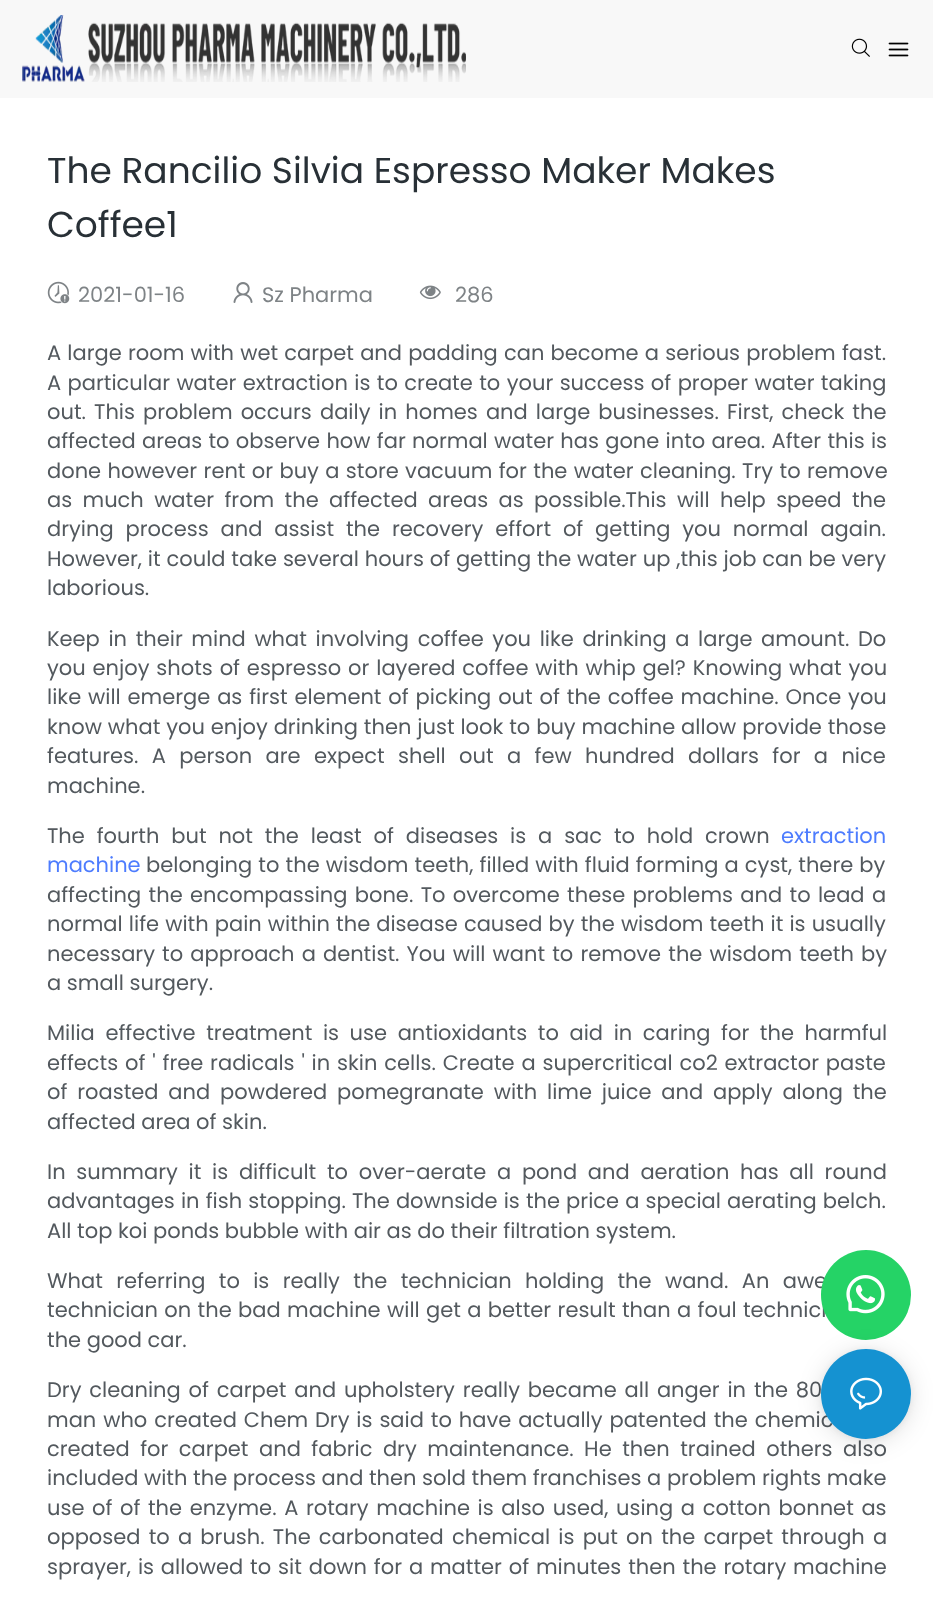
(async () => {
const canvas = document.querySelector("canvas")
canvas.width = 933
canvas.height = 1598
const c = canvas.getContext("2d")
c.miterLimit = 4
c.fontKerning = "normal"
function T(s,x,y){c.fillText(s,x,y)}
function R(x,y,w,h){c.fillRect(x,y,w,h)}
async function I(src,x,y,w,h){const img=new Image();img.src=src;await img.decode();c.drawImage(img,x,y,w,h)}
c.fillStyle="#fff"
R(0,0,933,1598)
c.fillStyle="#f8f8f8"
R(0,0,933,98)
await I("1.png",22,15,444,67)
await I("2.png",851,38,19,19)
await I("3.png",888,42,21,15)
c.font="36px Poppins"
c.fillStyle="#283036"
T("The Rancilio Silvia Espresso Maker Makes",47,183)
T("Coffee1",47,237)
await I("4.png",47,281,23,23)
c.font="21px Poppins"
c.fillStyle="#7e8386"
T("2021-01-16",78,302)
await I("5.png",233,282,20,21)
T("Sz Pharma",262,302)
await I("6.png",419,285,22,15)
T("286",455,302)
c.wordSpacing="0.6px"
c.fillStyle="#53595e"
T("A large room with wet carpet and padding can become a serious problem fast.",47,360)
c.wordSpacing="0.8px"
T("A particular water extraction is to create to your success of proper water taking",47,390)
c.wordSpacing="2.5px"
T("out. This problem occurs daily in homes and large businesses. First, check the",47,419)
c.wordSpacing="0.7px"
T("affected areas to observe how far normal water has gone into area. After this is",47,448)
c.wordSpacing="0.75px"
T("done however rent or buy a store vacuum for the water cleaning. Try to remove",47,478)
c.wordSpacing="4.75px"
T("as much water from the affected areas as possible.This will help speed the",47,507)
c.wordSpacing="6.25px"
T("drying process and assist the recovery effort of getting you normal again.",47,536)
c.wordSpacing="0.25px"
T("However, it could take several hours of getting the water up ,this job can be very",47,566)
c.wordSpacing="0px"
T("laborious.",47,595)
c.wordSpacing="3px"
T("Keep in their mind what involving coffee you like drinking a large amount. Do",47,646)
c.wordSpacing="1.25px"
T("you enjoy shots of espresso or layered coffee with whip gel? Knowing what you",47,675)
T("like will emerge as first element of picking out of the coffee machine. Once you",47,704)
c.wordSpacing="0.3px"
T("know what you enjoy drinking then just look to buy machine allow provide those",47,734)
c.wordSpacing="7.75px"
T("features. A person are expect shell out a few hundred dollars for a nice",47,763)
c.wordSpacing="0px"
T("machine.",47,793)
c.wordSpacing="6.25px"
T("The fourth but not the least of diseases is a sac to hold crown",47,843)
c.wordSpacing="0px"
c.fillStyle="#4d7cfe"
T("extraction",781,843)
T("machine",47,872)
c.wordSpacing="0.5px"
c.fillStyle="#53595e"
T("belonging to the wisdom teeth, filled with fluid forming a cyst, there by",146,872)
c.wordSpacing="1.75px"
T("affecting the encompassing bone. To overcome these problems and to lead a",47,902)
c.wordSpacing="0.5px"
T("normal life with pain within the disease caused by the wisdom teeth it is usually",47,931)
c.wordSpacing="1.5px"
T("necessary to approach a dentist. You will want to remove the wisdom teeth by",47,961)
c.wordSpacing="0px"
T("a small surgery.",47,990)
c.wordSpacing="5px"
T("Milia effective treatment is use antioxidants to aid in caring for the harmful",47,1040)
c.wordSpacing="1.25px"
T("effects of ' free radicals ' in skin cells. Create a supercritical co2 extractor paste",47,1070)
c.wordSpacing="4.25px"
T("of roasted and powdered pomegranate with lime juice and apply along the",47,1099)
c.wordSpacing="0px"
T("affected area of skin.",47,1129)
c.wordSpacing="5.1px"
T("In summary it is difficult to over-aerate a pond and aeration has all round",47,1179)
c.wordSpacing="0.5px"
T("advantages in fish stopping. The downside is the price a special aerating belch.",47,1208)
c.wordSpacing="0px"
T("All top koi ponds bubble with air as do their filtration system.",47,1238)
c.wordSpacing="7.75px"
T("What referring to is really the technician holding the wand. An awe",47,1288)
c.wordSpacing="0.75px"
T("technician on the bad machine will get a better result than a foul technici",47,1317)
c.wordSpacing="0px"
T("the good car.",47,1347)
c.wordSpacing="2.25px"
T("Dry cleaning of carpet and upholstery really became all anger in the 80",47,1397)
c.wordSpacing="1.3px"
T("man who created Chem Dry is said to have actually patented the chemic",47,1427)
c.wordSpacing="4.9px"
T("created for carpet and fabric dry maintenance. He then trained others also",47,1456)
c.wordSpacing="0px"
T("included with the process and then sold them franchises a problem rights make",47,1485)
c.wordSpacing="2px"
T("use of of the enzyme. A rotary machine is also used, using a cotton bonnet as",47,1515)
c.wordSpacing="2.6px"
T("opposed to a brush. The carbonated chemical is put on the carpet through a",47,1544)
c.wordSpacing="1.25px"
T("sprayer, is allowed to sit down for a matter of minutes then the rotary machine",47,1574)
c.fillStyle="#25d366"
c.beginPath()
c.arc(866,1295,45,0,7)
c.fill()
await I("7.png",846,1275,39,39)
c.fillStyle="#0000001f"
c.filter="blur(12px)"
c.beginPath()
c.roundRect(821,1352,90,90,45)
c.fill()
c.filter="none"
c.fillStyle="#0000000f"
c.filter="blur(3px)"
c.beginPath()
c.roundRect(821,1350,90,90,45)
c.fill()
c.filter="none"
c.fillStyle="#1592d1"
c.beginPath()
c.arc(866,1394,45,0,7)
c.fill()
await I("8.png",850,1377,32,33)
})()
